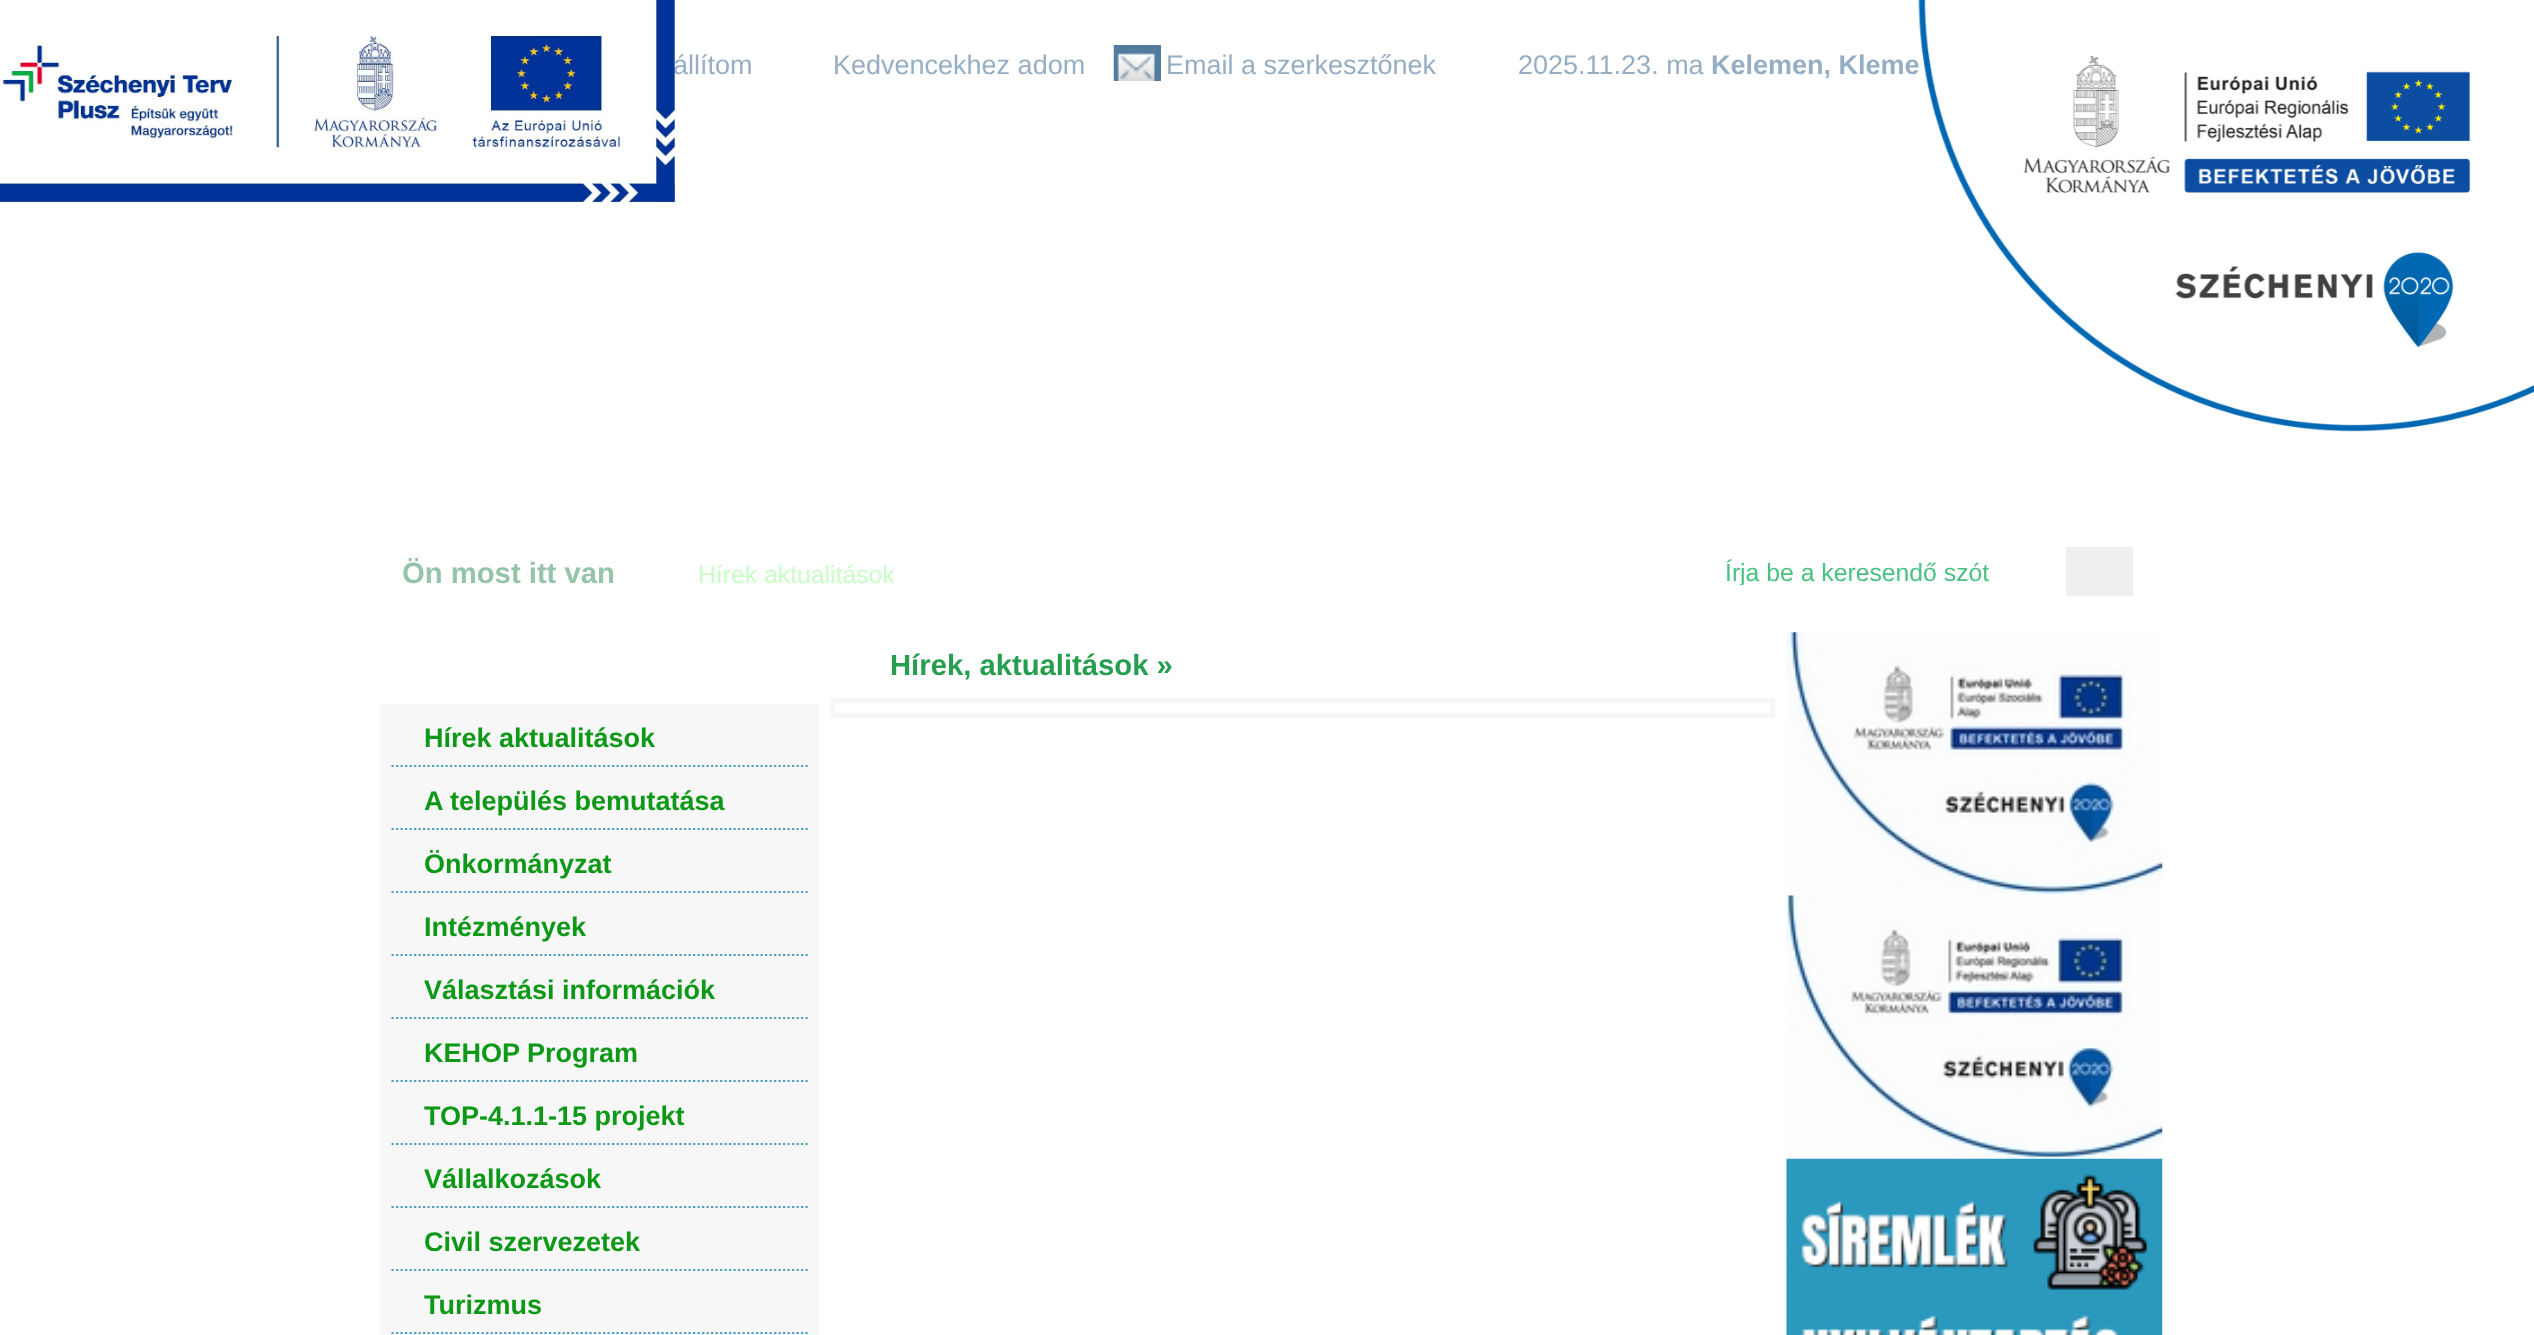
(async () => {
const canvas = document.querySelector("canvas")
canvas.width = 2534
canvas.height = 1335
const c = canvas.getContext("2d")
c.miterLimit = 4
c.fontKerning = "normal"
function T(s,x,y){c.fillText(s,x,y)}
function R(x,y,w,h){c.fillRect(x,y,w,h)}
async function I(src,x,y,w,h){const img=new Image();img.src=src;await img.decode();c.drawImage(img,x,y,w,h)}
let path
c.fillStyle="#fff"
R(0,0,2534,1335)
c.font="27px Liberation Sans"
c.fillStyle="#96aec4"
T("állítom",673,74)
await I("1.png",0,0,675,203)
T("Kedvencekhez adom",833,74)
await I("2.png",1113,45,48,36)
T("Email a szerkesztőnek",1166,74)
T("2025.11.23. ma",1518,74)
c.font="bold 27px Liberation Sans"
T("Kelemen, Kleme",1711,74)
c.font="bold 29.25px Liberation Sans"
c.fillStyle="#95c4ab"
T("Ön most itt van",402,583)
c.font="24.75px Liberation Sans"
c.fillStyle="#c8ffc4"
T("Hírek aktualitások",698,583)
c.save()
c.beginPath()
c.rect(1726,558,319,27)
c.clip()
c.fillStyle="#49c181"
T("Írja be a keresendő szót",1725,581)
c.restore()
c.fillStyle="#efefef"
R(2066,547,67,49)
c.font="bold 29.25px Liberation Sans"
c.fillStyle="#269e50"
T("Hírek, aktualitások »",890,675)
c.strokeStyle="#f7f7f7"
c.lineWidth=5
c.strokeRect(832.5,700.5,940,15)
await I("3.png",1786,632,377,264)
await I("4.png",1786,895,377,264)
await I("5.png",1786,1158,377,177)
c.fillStyle="#f7f7f7"
R(380,704,439,631)
path = new Path2D("M391.5 766h416.5")
c.strokeStyle="#519fc3"
c.lineWidth=2.2
c.setLineDash([2.25,2.25])
c.stroke(path)
c.font="bold 27px Liberation Sans"
c.fillStyle="#0e9817"
T("Hírek aktualitások",424,747)
path = new Path2D("M391.5 829h416.5")
c.stroke(path)
T("A település bemutatása",424,810)
path = new Path2D("M391.5 892h416.5")
c.stroke(path)
T("Önkormányzat",424,873)
path = new Path2D("M391.5 955h416.5")
c.stroke(path)
T("Intézmények",424,936)
path = new Path2D("M391.5 1018h416.5")
c.stroke(path)
T("Választási információk",424,999)
path = new Path2D("M391.5 1081h416.5")
c.stroke(path)
T("KEHOP Program",424,1062)
path = new Path2D("M391.5 1144h416.5")
c.stroke(path)
T("TOP-4.1.1-15 projekt",424,1125)
path = new Path2D("M391.5 1207h416.5")
c.stroke(path)
T("Vállalkozások",424,1188)
path = new Path2D("M391.5 1270h416.5")
c.stroke(path)
T("Civil szervezetek",424,1251)
path = new Path2D("M391.5 1333h416.5")
c.stroke(path)
T("Turizmus",424,1314)
await I("6.png",1918,0,616,432)
})()
